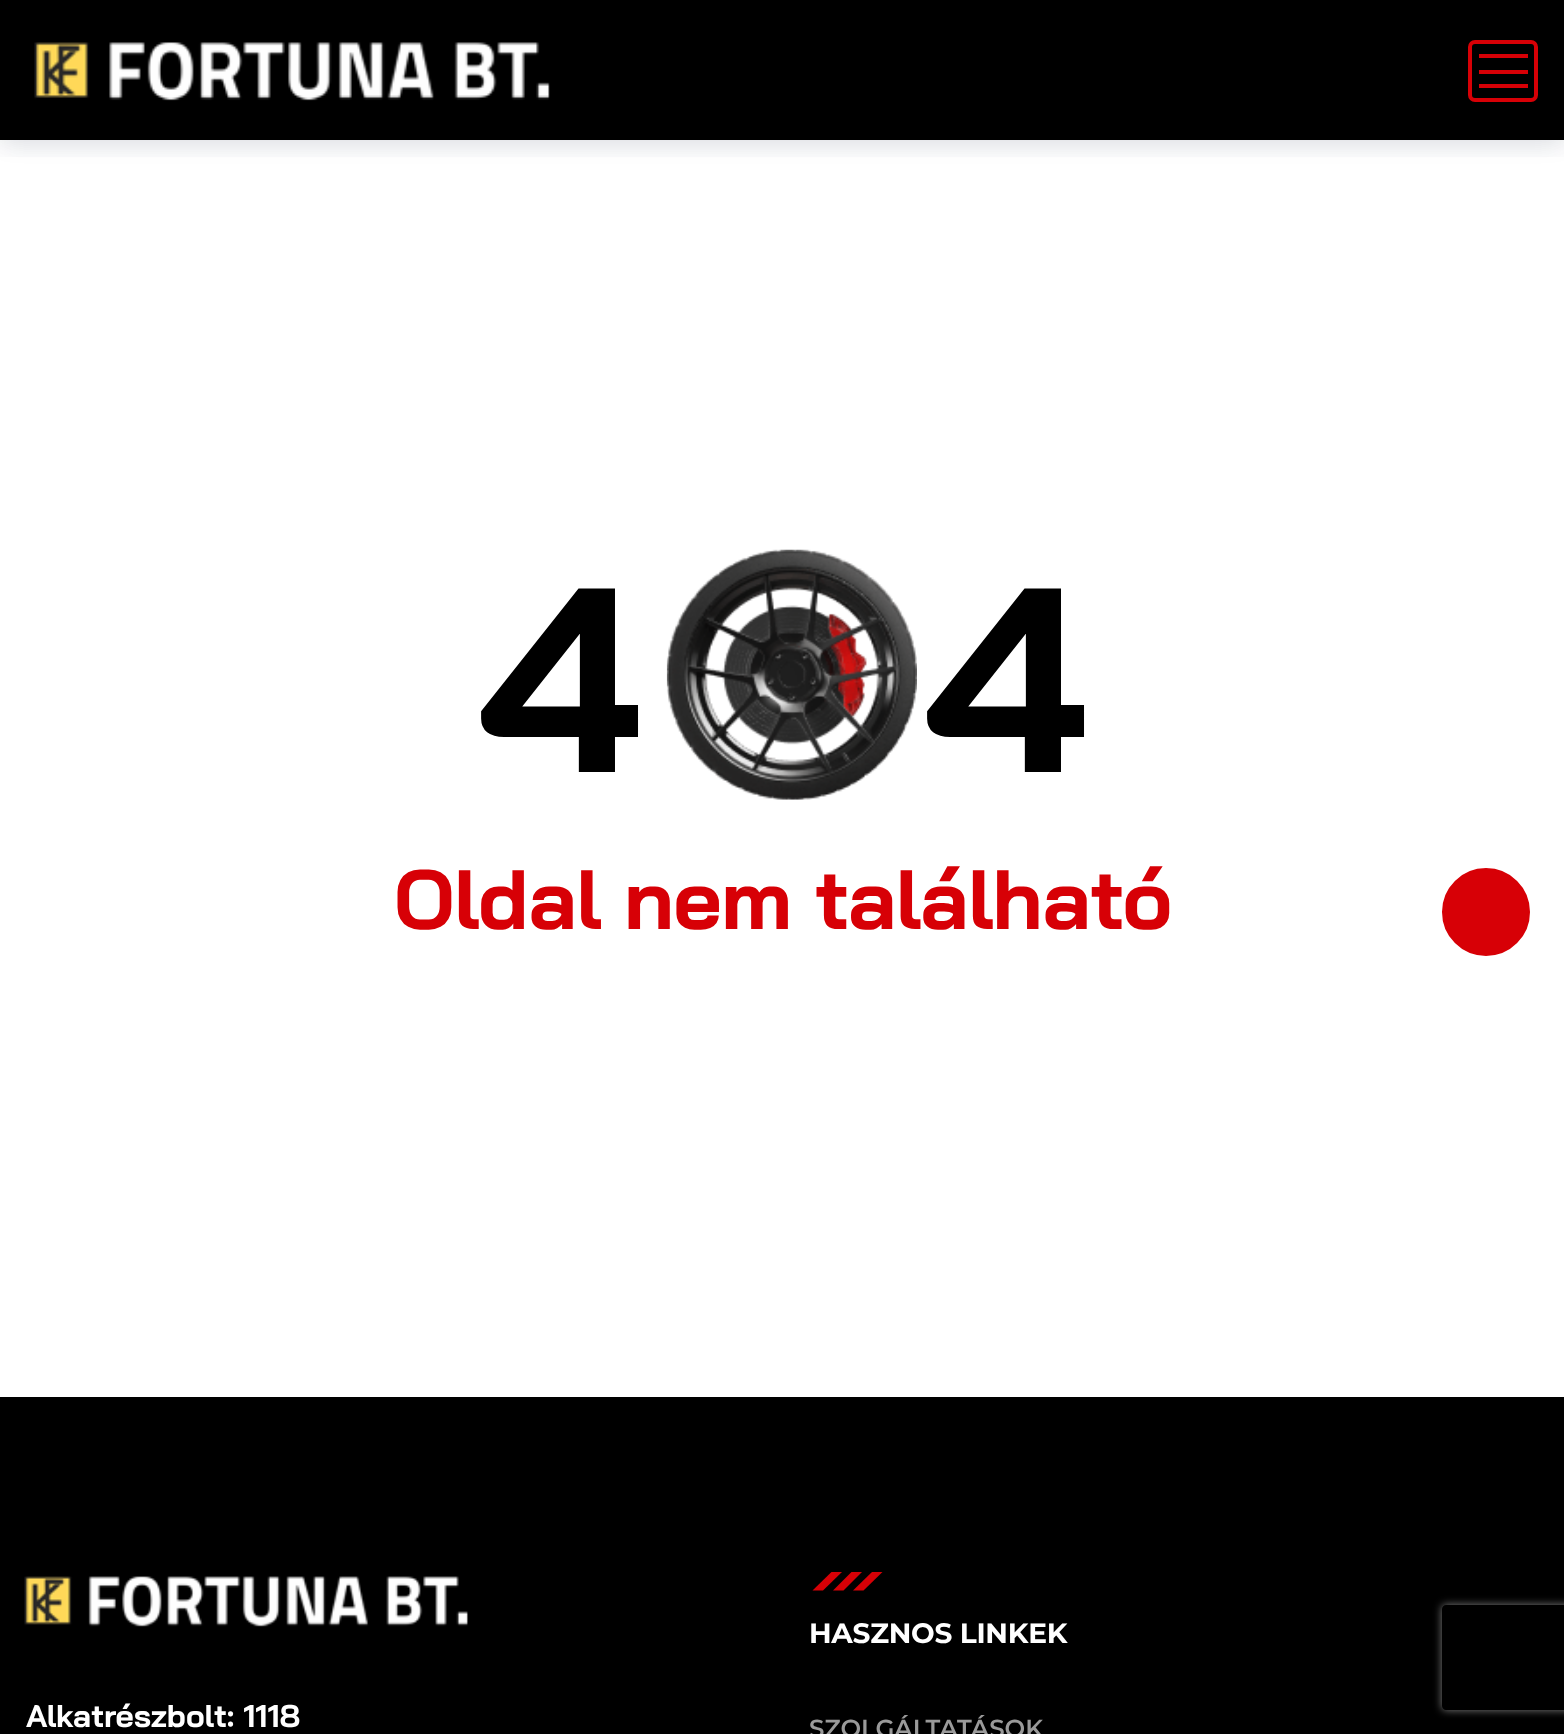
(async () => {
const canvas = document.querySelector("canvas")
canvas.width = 1564
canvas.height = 1734
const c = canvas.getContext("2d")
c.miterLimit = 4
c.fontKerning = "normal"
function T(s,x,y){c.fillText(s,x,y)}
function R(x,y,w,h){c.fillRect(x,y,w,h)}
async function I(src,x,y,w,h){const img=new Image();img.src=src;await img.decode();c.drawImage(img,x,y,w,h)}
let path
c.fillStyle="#fff"
R(0,0,1564,1734)
c.fillStyle="#00000014"
c.filter="blur(13px)"
c.beginPath()
c.rect(0,0,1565,140)
c.fill()
c.filter="none"
c.fillStyle="#000"
R(0,0,1564,140)
c.save()
c.beginPath()
c.rect(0,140,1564,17)
c.clip()
c.fillStyle="#02154e17"
c.filter="blur(16px)"
c.beginPath()
c.rect(0,5,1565,140)
c.fill()
c.filter="none"
c.restore()
await I("1.png",34,42,516,59)
c.beginPath()
c.roundRect(1470,42,66,58,5)
c.strokeStyle="#d70006"
c.lineWidth=4
c.stroke()
c.fillStyle="#d70006"
R(1479,54,49,4)
R(1479,70,49,4)
R(1479,84,49,4)
c.letterSpacing="-3px"
c.font="bold 262px Bai Jamjuree"
c.fillStyle="#000"
T("4",479,772)
await I("2.png",666,549,251,251)
T("4",925,772)
c.letterSpacing="-0.8px"
c.font="bold 84px Bai Jamjuree"
c.fillStyle="#d70006"
T("Oldal nem található",394,929)
c.beginPath()
c.arc(1486,912,43,0,7)
c.fill()
c.lineWidth=2
c.stroke()
c.fillStyle="#000"
R(0,1397,1564,337)
await I("3.png",24,1576,444,51)
c.letterSpacing="0px"
c.font="bold 31.5px Bai Jamjuree"
c.fillStyle="#fff"
T("Alkatrészbolt: 1118",26,1727)
c.save()
c.beginPath()
c.rect(809,1572,77,21)
c.clip()
c.fillStyle="#d70006"
path = new Path2D("M842.5 1571.5h-10.5l-19.5 19h10.5z")
c.fill(path)
path = new Path2D("M862.5 1571.5h-10.5l-19 19h10.5z")
c.fill(path)
path = new Path2D("M883 1571.5h-10.5l-19.5 19h10.5z")
c.fill(path)
c.restore()
c.letterSpacing="-0.25px"
c.font="bold 28px Montserrat"
T("HASZNOS LINKEK",809,1643)
c.letterSpacing="0px"
c.font="600 24.5px Montserrat"
c.fillStyle="#9a9a9a"
T("SZOLGÁLTATÁSOK",809,1737)
c.save()
path = new Path2D("M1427 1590h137v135h-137zm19 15h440c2 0 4 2 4 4v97c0 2-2 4-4 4h-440c-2 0-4-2-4-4v-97c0-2 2-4 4-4z")
c.clip(path,"evenodd")
c.fillStyle="#808080"
c.filter="blur(4.5px)"
c.beginPath()
c.roundRect(1442,1605,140,105,4)
c.fill()
c.filter="none"
c.restore()
})()
